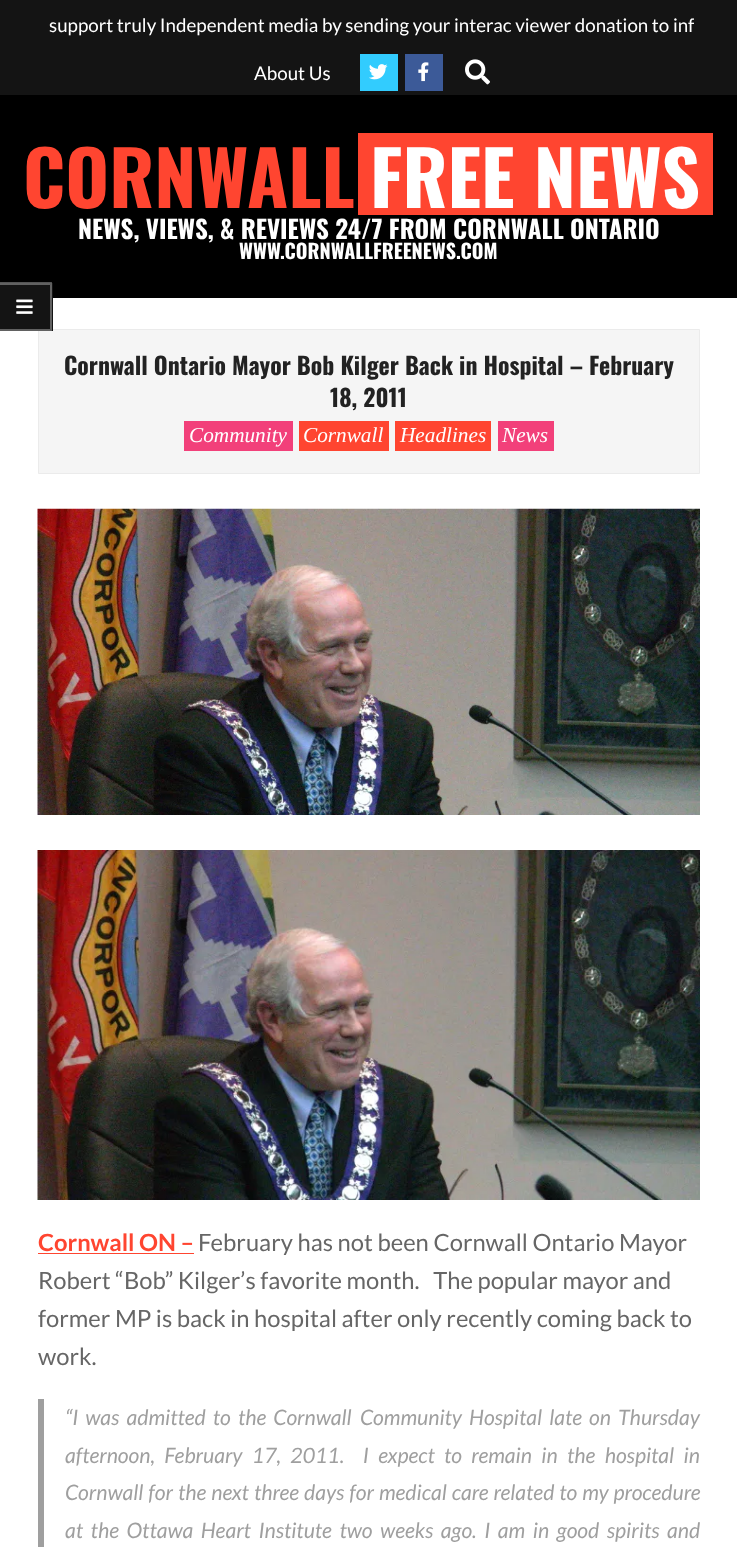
(async () => {
const canvas = document.querySelector("canvas")
canvas.width = 737
canvas.height = 1547
const c = canvas.getContext("2d")
c.miterLimit = 4
c.fontKerning = "normal"
function T(s,x,y){c.fillText(s,x,y)}
function R(x,y,w,h){c.fillRect(x,y,w,h)}
async function I(src,x,y,w,h){const img=new Image();img.src=src;await img.decode();c.drawImage(img,x,y,w,h)}
let path
c.fillStyle="#000"
R(0,0,737,1547)
c.fillStyle="#141414"
R(0,0,737,95)
c.save()
c.beginPath()
c.rect(44,10,650,31)
c.clip()
c.font="18.75px Lato"
c.fillStyle="#fff"
T("support truly Independent media by sending your interac viewer donation to inf",49,32)
c.restore()
c.font="18.75px Lato"
c.fillStyle="#fff"
T("About Us",254,80)
c.fillStyle="#32ccfe"
R(360,54,38,37)
await I("1.png",369,64,19,16)
c.fillStyle="#3c5a98"
R(405,54,38,37)
await I("2.png",418,62,11,20)
await I("3.png",465,59,25,26)
c.font="bold 75px Oswald"
c.fillStyle="#ff4530"
T("CORNWALL",23,208)
R(358,133,355,82)
c.fillStyle="#fff"
T("FREE NEWS",370,208)
c.font="bold 25px Oswald"
T("NEWS, VIEWS, & REVIEWS 24/7 FROM CORNWALL ONTARIO",78,239)
c.font="bold 20px Oswald"
T("WWW.CORNWALLFREENEWS.COM",239,259)
R(0,298,737,1249)
c.fillStyle="#f5f5f5"
c.beginPath()
c.rect(38.5,329.5,661,144)
c.fill()
c.strokeStyle="#ebebeb"
c.stroke()
c.fillStyle="#141414"
R(0,283,53,48)
c.fillStyle="#ffffff54"
path = new Path2D("M0 282h52l-2 3h-50z")
c.fill(path)
path = new Path2D("M52 282v49l-2-2v-44z")
c.fill(path)
path = new Path2D("M52 331h-52v-2h50z")
c.fill(path)
await I("4.png",16,299,17,15)
c.font="bold 23.75px Oswald"
c.fillStyle="#222"
T("Cornwall Ontario Mayor Bob Kilger Back in Hospital – February",64,375)
T("18, 2011",330,407)
c.fillStyle="#f2407a"
R(184,421,109,30)
c.font="italic 21.25px Liberation Serif"
c.fillStyle="#fff"
T("Community",189,442)
c.fillStyle="#ff4530"
R(299,421,90,30)
c.fillStyle="#fff"
T("Cornwall",303,442)
c.fillStyle="#ff4530"
R(395,421,96,30)
c.fillStyle="#fff"
T("Headlines",400,442)
c.fillStyle="#f2407a"
R(498,421,56,30)
c.fillStyle="#fff"
T("News",502,442)
await I("5.png",37,508,663,307)
await I("6.png",37,850,663,350)
c.font="bold 23.75px Lato"
c.fillStyle="#ff4530"
T("Cornwall ON –",38,1251)
R(38,1253,156,1)
c.font="23.75px Lato"
c.fillStyle="#666"
T("February has not been Cornwall Ontario Mayor",198,1251)
T("Robert “Bob” Kilger’s favorite month.   The popular mayor and",38,1289)
T("former MP is back in hospital after only recently coming back to",38,1327)
T("work.",38,1365)
c.fillStyle="#9f9f9f"
R(38,1399,6,148)
c.wordSpacing="3px"
c.font="italic 21.25px Lato"
T("“I was admitted to the Cornwall",65,1425)
T("Community Hospital late on Thursday",360,1425)
c.wordSpacing="5.25px"
T("afternoon, February 17, 2011.  I expect to remain in the hospital in",65,1463)
c.wordSpacing="0.9px"
T("Cornwall for the next three days for medical care related to my procedure",65,1500)
c.wordSpacing="3.5px"
T("at the Ottawa Heart Institute two weeks ago. I am in good spirits and",65,1538)
})()
